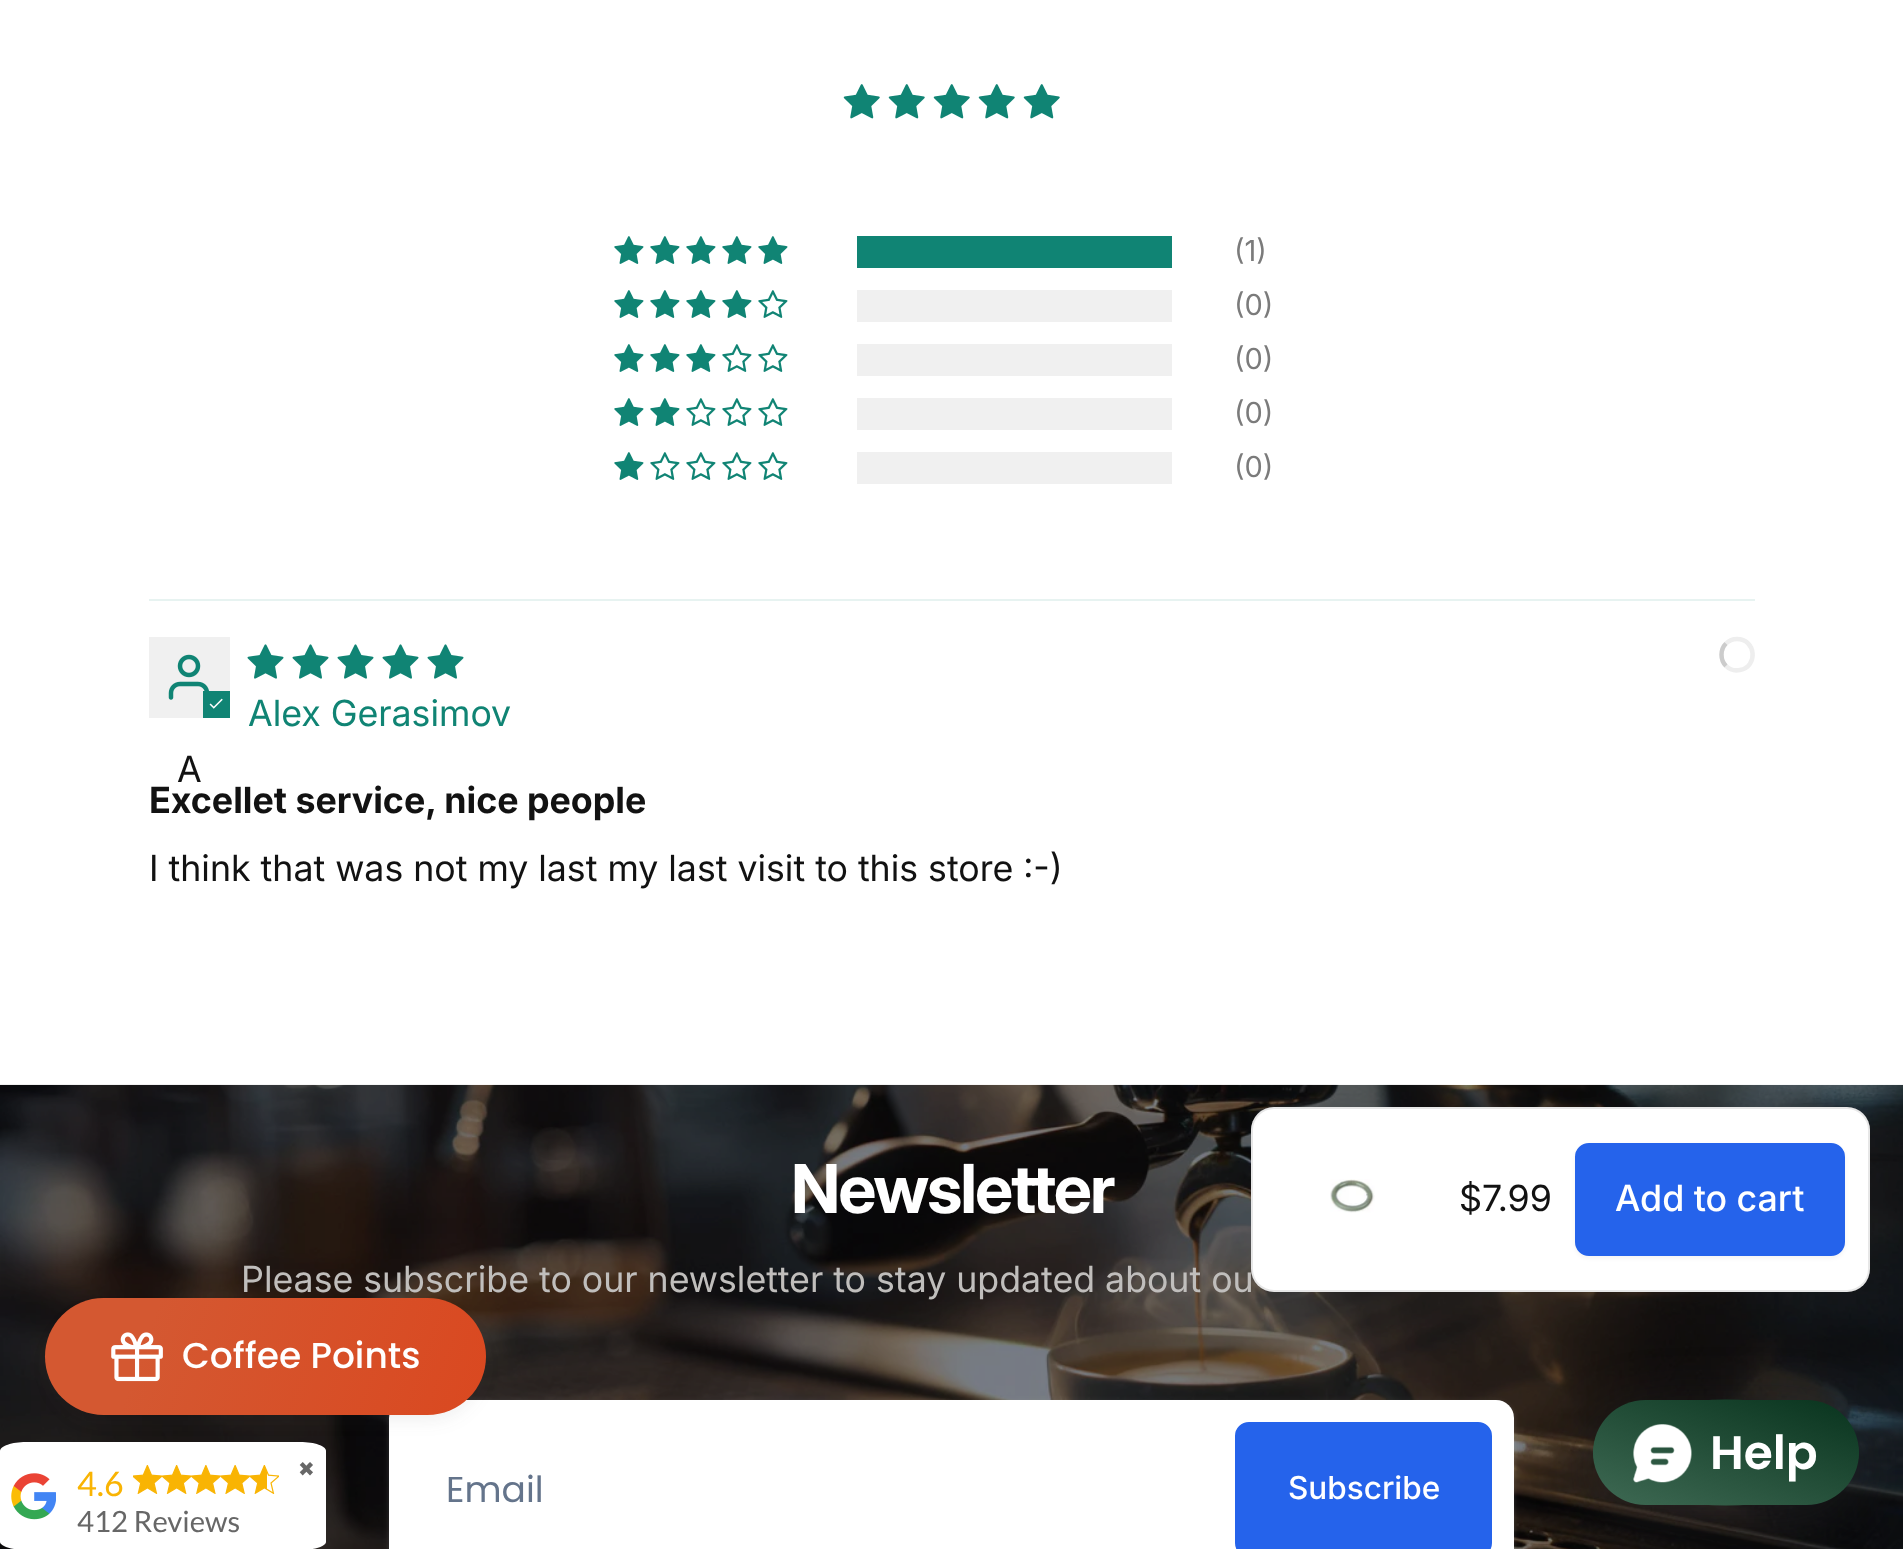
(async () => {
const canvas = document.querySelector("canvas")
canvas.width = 1903
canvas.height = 1549
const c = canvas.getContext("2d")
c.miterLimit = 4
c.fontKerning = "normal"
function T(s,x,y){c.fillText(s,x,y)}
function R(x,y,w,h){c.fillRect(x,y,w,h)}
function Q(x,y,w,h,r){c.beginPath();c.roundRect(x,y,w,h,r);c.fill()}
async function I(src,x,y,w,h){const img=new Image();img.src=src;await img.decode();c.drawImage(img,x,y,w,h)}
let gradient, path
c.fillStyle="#fff"
R(0,0,1903,1549)
await I("1.png",843,84,37,35)
await I("1.png",888,84,37,35)
await I("1.png",933,84,37,35)
await I("1.png",978,84,37,35)
await I("1.png",1023,84,37,35)
await I("2.png",614,236,30,28)
await I("2.png",650,236,30,28)
await I("2.png",686,236,30,28)
await I("2.png",722,236,30,28)
await I("2.png",758,236,30,28)
c.fillStyle="#108474"
R(857,236,315,32)
c.font="29px Inter"
c.fillStyle="#7b7b7b"
T("(1)",1234,261)
await I("2.png",614,290,30,28)
await I("2.png",650,290,30,28)
await I("2.png",686,290,30,28)
await I("2.png",722,290,30,28)
await I("3.png",758,290,30,28)
c.fillStyle="#f0f0f0"
R(857,290,315,32)
c.fillStyle="#7b7b7b"
T("(0)",1234,315)
await I("2.png",614,344,30,28)
await I("2.png",650,344,30,28)
await I("2.png",686,344,30,28)
await I("3.png",722,344,30,28)
await I("3.png",758,344,30,28)
c.fillStyle="#f0f0f0"
R(857,344,315,32)
c.fillStyle="#7b7b7b"
T("(0)",1234,369)
await I("2.png",614,398,30,28)
await I("2.png",650,398,30,28)
await I("3.png",686,398,30,28)
await I("3.png",722,398,30,28)
await I("3.png",758,398,30,28)
c.fillStyle="#f0f0f0"
R(857,398,315,32)
c.fillStyle="#7b7b7b"
T("(0)",1234,423)
await I("2.png",614,452,30,28)
await I("3.png",650,452,30,28)
await I("3.png",686,452,30,28)
await I("3.png",722,452,30,28)
await I("3.png",758,452,30,28)
c.fillStyle="#f0f0f0"
R(857,452,315,32)
c.fillStyle="#7b7b7b"
T("(0)",1234,477)
c.fillStyle="#e7f3f1"
R(149,599,1606,2)
await I("4.png",247,644,37,35)
await I("4.png",292,644,37,35)
await I("4.png",337,644,37,35)
await I("4.png",382,644,37,35)
await I("4.png",427,644,37,35)
path = new Path2D("M1726 643.5c3-3 7-4.5 11-4.5c19 0 21.5 27.5 3 31c-5 1-10.5-.5-14-4")
c.strokeStyle="#eee"
c.lineWidth=4.5
c.stroke(path)
path = new Path2D("M1726 666c-6-6-6-16.5 0-22.5")
c.strokeStyle="#ccc"
c.stroke(path)
c.font="36px 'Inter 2'"
c.fillStyle="#108474"
T("Alex Gerasimov",248,726)
c.fillStyle="#f0f0f0"
R(149,637,81,81)
await I("5.png",168,654,41,46)
c.fillStyle="#108474"
R(203,691,27,27)
await I("6.png",209,698,14,11)
c.fillStyle="#121212"
T("A",177,782)
c.font="bold 36px Inter"
T("Excellet service, nice people",149,813)
c.font="36px 'Inter 2'"
T("I think that was not my last my last visit to this store :-)",149,881)
await I("8.png",0,1084,1903,465)
c.fillStyle="#c0bebc"
T("Please subscribe to our newsletter to stay updated about ou",241,1292)
c.fillStyle="#fff"
Q(1251,1107,619,185,23)
c.beginPath()
c.roundRect(1252,1108,617,183,22)
c.strokeStyle="#1212121a"
c.lineWidth=2
c.stroke()
await I("7.png",1330,1179,45,34)
c.fillStyle="#121212"
T("$7.99",1459,1211)
c.fillStyle="#1212120d"
c.filter="blur(2px)"
c.beginPath()
c.roundRect(1575,1145,270,113,14)
c.fill()
c.filter="none"
c.fillStyle="#2563eb"
c.beginPath()
c.roundRect(1576,1144,268,111,13)
c.fill()
c.strokeStyle="#2563eb"
c.stroke()
c.font="500 36px 'Inter 2'"
c.fillStyle="#fff"
T("Add to cart",1615,1211)
c.letterSpacing="-2px"
c.font="bold 67.5px 'Inter 2'"
T("Newsletter",791,1213)
c.fillStyle="#ffffff1a"
c.filter="blur(3.5px)"
c.beginPath()
c.roundRect(389,1402,1125,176,18)
c.fill()
c.filter="none"
c.fillStyle="#ffffff0f"
c.filter="blur(2px)"
c.beginPath()
c.roundRect(389,1402,1125,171,18)
c.fill()
c.filter="none"
c.fillStyle="#fff"
Q(389,1400,1125,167,18)
c.letterSpacing="0px"
c.font="36px Poppins"
c.fillStyle="#64748b"
T("Email",446,1502)
c.fillStyle="#2563eb"
c.beginPath()
c.roundRect(1236,1423,255,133,13)
c.fill()
c.stroke()
c.font="500 31.5px Inter"
c.fillStyle="#fff"
T("Subscribe",1288,1499)
c.fillStyle="#44444414"
c.filter="blur(9px)"
c.beginPath()
c.roundRect(50,1312,432,108,54)
c.fill()
c.filter="none"
gradient = c.createLinearGradient(51,1281,652,1494)
gradient.addColorStop(.17,"#d45831")
gradient.addColorStop(1,"#dd4017")
c.fillStyle = gradient
Q(45,1298,441,117,58.5)
await I("9.png",111,1332,52,50)
c.font="500 36px Poppins"
c.fillStyle="#fff"
T("Coffee Points",182,1368)
path = new Path2D("M26 1442h274c15 0 26 4 26 9v91c0 4-11 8-26 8h-274c-14 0-26-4-26-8v-91c0-5 12-9 26-9z")
c.fill(path)
c.font="20px DejaVu Sans"
c.fillStyle="#676767"
T("✖",298,1476)
await I("10.png",11,1473,45,47)
c.font="34px Lato"
c.fillStyle="#f9b403"
T("4.6",77,1496)
await I("11.png",133,1465,29,29)
await I("12.png",162,1465,29,29)
await I("13.png",191,1465,30,29)
await I("14.png",221,1465,29,29)
await I("15.png",250,1465,29,29)
c.font="29.25px Lato"
c.fillStyle="#676767"
T("412 Reviews",77,1532)
c.fillStyle="#64646f33"
c.filter="blur(32.5px)"
c.beginPath()
c.roundRect(1593,1415,266,106,53)
c.fill()
c.filter="none"
gradient = c.createLinearGradient(1756,1364,1695,1541)
gradient.addColorStop(0,"#08331d")
gradient.addColorStop(1,"#3f6a54")
c.fillStyle = gradient
Q(1593,1400,266,105,52.5)
c.beginPath()
c.ellipse(1726,1452.5,133,53,0,0,7)
c.fill()
await I("16.png",1633,1424,59,59)
c.font="600 47px Poppins"
c.fillStyle="#fff"
T("Help",1710,1469)
})()
